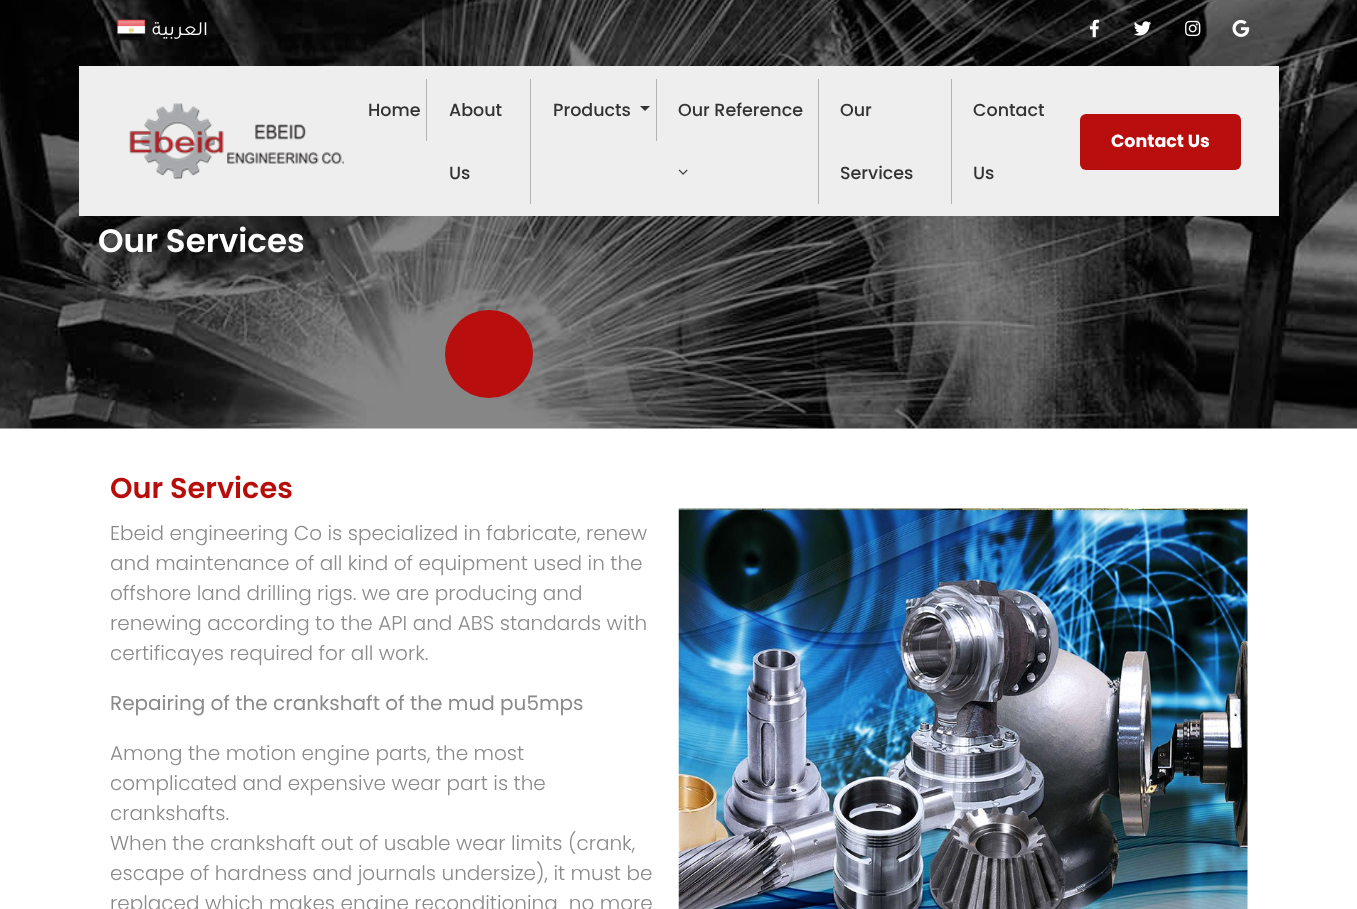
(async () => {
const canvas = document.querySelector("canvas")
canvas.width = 1357
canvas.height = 909
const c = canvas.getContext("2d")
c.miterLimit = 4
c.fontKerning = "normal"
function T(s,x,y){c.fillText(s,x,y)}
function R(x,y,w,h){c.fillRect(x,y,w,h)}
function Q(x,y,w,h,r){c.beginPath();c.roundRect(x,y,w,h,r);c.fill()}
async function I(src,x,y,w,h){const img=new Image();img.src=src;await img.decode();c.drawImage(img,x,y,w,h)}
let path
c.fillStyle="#fff"
R(0,0,1357,909)
await I("8.png",0,0,1357,429)
await I("1.png",116,19,30,23)
c.direction="rtl"
c.font="20px Tajawal"
T("العربية",208,35)
await I("2.png",1090,19,10,19)
await I("3.png",1134,21,18,15)
await I("4.png",1185,20,16,17)
await I("5.png",1232,20,18,17)
c.fillStyle="#eee"
R(79,66,1200,150)
await I("6.png",129,103,215,76)
c.fillStyle="#b3b3b3"
R(426,79,1,62)
c.direction="ltr"
c.font="500 17.5px Poppins"
c.fillStyle="#333"
T("Home",368,116)
c.fillStyle="#b3b3b3"
R(530,79,1,125)
c.fillStyle="#333"
T("About",449,116)
T("Us",449,179)
c.fillStyle="#b3b3b3"
R(656,79,1,62)
c.fillStyle="#333"
T("Products",553,116)
path = new Path2D("M640 106h10l-5 5z")
c.fill(path)
c.fillStyle="#b3b3b3"
R(818,79,1,125)
c.fillStyle="#333"
T("Our Reference",678,116)
await I("7.png",678,169,10,6)
c.fillStyle="#b3b3b3"
R(951,79,1,125)
c.fillStyle="#333"
T("Our",840,116)
T("Services",840,179)
T("Contact",973,116)
T("Us",973,179)
c.fillStyle="#b80e0e"
Q(1080,114,161,56,6)
c.font="bold 17.5px Poppins"
c.fillStyle="#fff"
T("Contact Us",1111,147)
c.font="600 32.5px Poppins"
T("Our Services",98,252)
c.fillStyle="#b80e0e"
c.beginPath()
c.arc(489,354,44,0,7)
c.fill()
c.font="600 28.75px Poppins"
c.fillStyle="#b80e0b"
T("Our Services",110,498)
c.font="300 20px Poppins"
c.fillStyle="#8a8a8a"
T("Ebeid engineering Co is specialized in fabricate, renew",110,540)
T("and maintenance of all kind of equipment used in the",110,570)
T("offshore land drilling rigs. we are producing and",110,600)
T("renewing according to the API and ABS standards with",110,630)
T("certificayes required for all work.",110,660)
await I("9.png",678,508,570,401)
c.font="20px Poppins"
T("Repairing of the crankshaft of the mud pu5mps",110,710)
c.font="300 20px Poppins"
T("Among the motion engine parts, the most",110,760)
T("complicated and expensive wear part is the",110,790)
T("crankshafts.",110,820)
T("When the crankshaft out of usable wear limits (crank,",110,850)
T("escape of hardness and journals undersize), it must be",110,880)
T("replaced which makes engine reconditioning  no more",110,910)
})()
